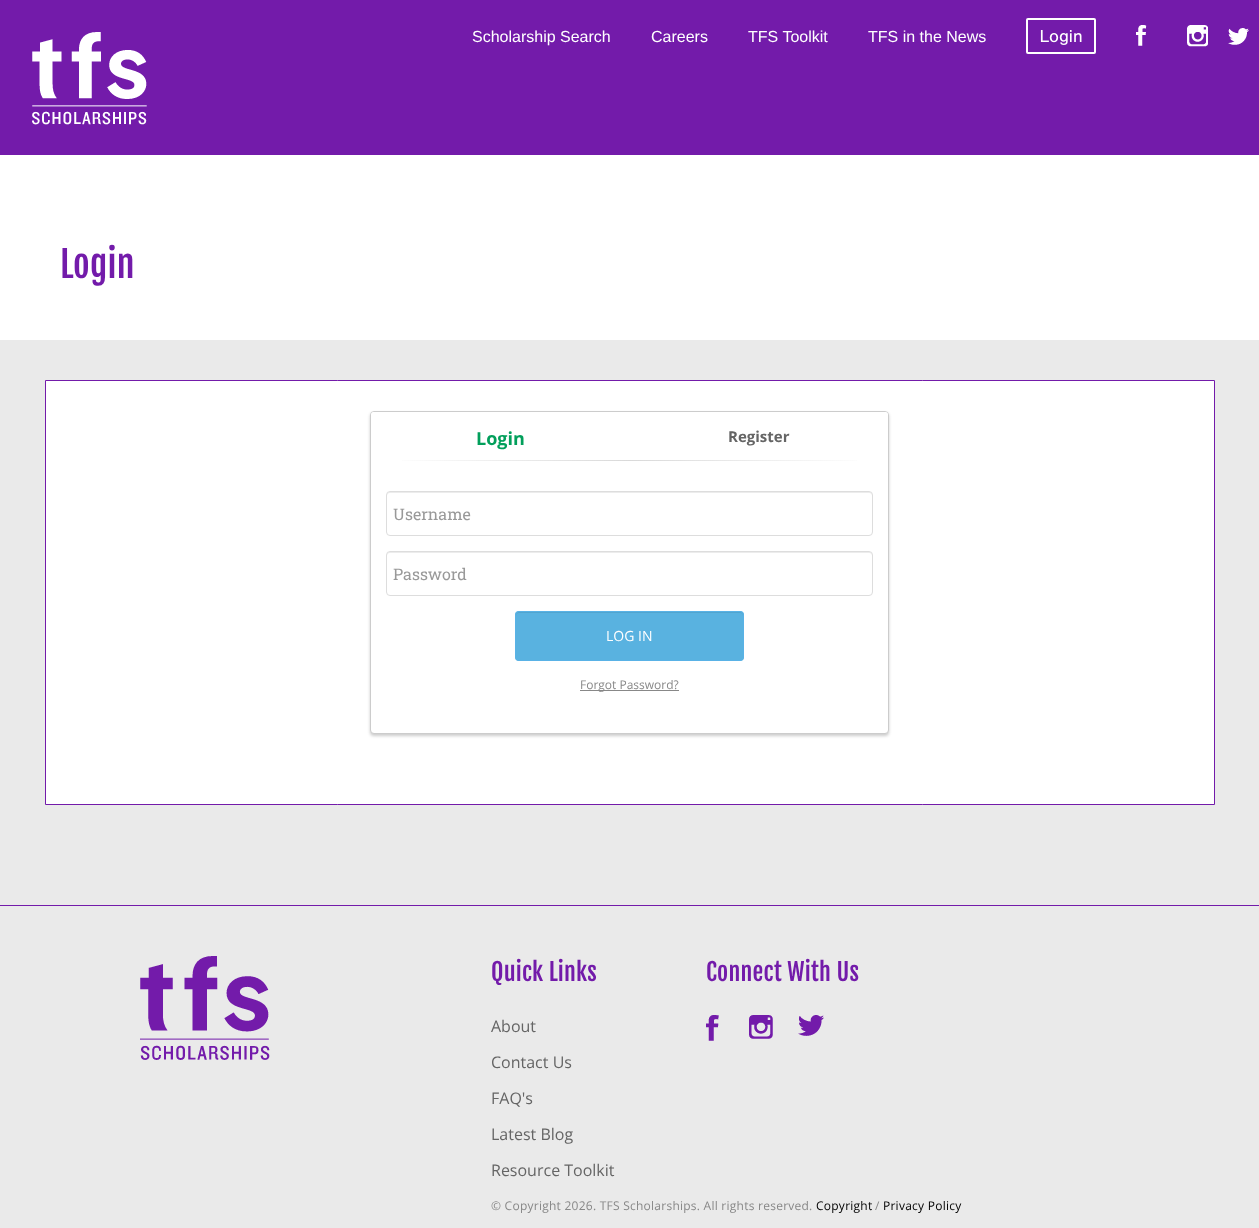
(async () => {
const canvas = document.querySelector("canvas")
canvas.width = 1259
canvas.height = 1228
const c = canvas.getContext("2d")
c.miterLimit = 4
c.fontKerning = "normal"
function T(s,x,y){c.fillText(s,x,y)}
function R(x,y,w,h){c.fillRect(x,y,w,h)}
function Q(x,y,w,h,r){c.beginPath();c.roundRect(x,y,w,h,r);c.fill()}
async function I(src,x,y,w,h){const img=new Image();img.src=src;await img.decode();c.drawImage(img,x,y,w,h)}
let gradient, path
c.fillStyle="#eaeaea"
R(0,0,1259,1228)
c.fillStyle="#731baa"
R(0,0,1259,155)
await I("1.png",32,32,115,93)
c.font="16px Liberation Sans"
c.fillStyle="#fff"
T("Scholarship Search",472,42)
T("Careers",651,42)
T("TFS Toolkit",748,42)
T("TFS in the News",868,42)
await I("2.png",1026,18,70,36)
await I("3.png",1136,25,11,21)
await I("4.png",1187,25,21,22)
await I("5.png",1228,28,21,17)
R(0,155,1259,185)
c.letterSpacing="0.25px"
c.font="36px Fjalla One"
c.fillStyle="#731baa"
T("Login",60,278)
c.fillStyle="#fff"
c.beginPath()
c.rect(45.5,380.5,1169,424)
c.fill()
c.strokeStyle="#731baa"
c.stroke()
c.fillStyle="#00000033"
c.filter="blur(1.5px)"
c.beginPath()
c.roundRect(370,413,519,323,4)
c.fill()
c.filter="none"
c.fillStyle="#fff"
c.beginPath()
c.roundRect(370.5,411.5,518,322,3.5)
c.fill()
c.strokeStyle="#ccc"
c.stroke()
c.beginPath()
c.roundRect(371,412,517,64,[3,3,0,0])
c.fill()
c.letterSpacing="0px"
c.font="bold 18px Open Sans"
c.fillStyle="#029f5b"
T("Login",476,445)
c.font="bold 15px Open Sans"
c.fillStyle="#656565"
T("Register",728,442)
gradient = c.createLinearGradient(386,461,873,461)
gradient.addColorStop(0,"#fff")
gradient.addColorStop(.5,"#d9d9d9")
gradient.addColorStop(1,"#fff")
c.fillStyle = gradient
R(402,460,455,1)
c.fillStyle="#ececec"
path = new Path2D("M390 493h479c2 0 3 1 3 3v-1c0-2-1-3-3-3h-479c-2 0-3 1-3 3v1c0-2 1-3 3-3z")
c.fill(path)
c.beginPath()
c.roundRect(386.5,491.5,486,44,3.5)
c.strokeStyle="#ddd"
c.stroke()
c.font="16px Roboto Slab"
c.fillStyle="#999"
T("Username",393,520)
c.fillStyle="#ececec"
path = new Path2D("M390 553h479c2 0 3 1 3 3v-1c0-2-1-3-3-3h-479c-2 0-3 1-3 3v1c0-2 1-3 3-3z")
c.fill(path)
c.beginPath()
c.roundRect(386.5,551.5,486,44,3.5)
c.stroke()
c.fillStyle="#999"
T("Password",393,580)
c.fillStyle="#59b2e0"
Q(515,611,229,50,4)
c.fillStyle="#52a5cf"
path = new Path2D("M519 613h221c2 0 3 1 3 3v-1c0-2-1-3-3-3h-221c-2 0-3 1-3 3v1c0-2 1-3 3-3z")
c.fill(path)
c.beginPath()
c.roundRect(515.5,611.5,228,49,3.5)
c.strokeStyle="#59b2e6"
c.stroke()
c.font="14px Open Sans"
c.fillStyle="#fff"
T("LOG IN",606,641)
c.fillStyle="#888"
R(580,690,99,1)
c.font="12px Open Sans"
T("Forgot Password?",580,689)
c.fillStyle="#731baa"
R(0,905,1259,1)
await I("6.png",140,956,130,104)
c.letterSpacing="0.25px"
c.font="24px Fjalla One"
T("Quick Links",491,981)
c.letterSpacing="0px"
c.font="16px Open Sans"
c.fillStyle="#656565"
T("About",491,1032)
T("Contact Us",491,1068)
T("FAQ's",491,1104)
T("Latest Blog",491,1140)
T("Resource Toolkit",491,1176)
c.letterSpacing="0.25px"
c.font="24px Fjalla One"
c.fillStyle="#731baa"
T("Connect With Us",706,981)
await I("7.png",706,1015,13,26)
await I("8.png",749,1015,24,24)
await I("9.png",798,1015,26,21)
c.font="12px Open Sans"
c.fillStyle="#888"
T("© Copyright 2026. TFS Scholarships. All rights reserved.",491,1210)
c.fillStyle="#000"
T("Copyright",816,1210)
c.fillStyle="#888"
T("/",875,1210)
c.fillStyle="#000"
T("Privacy Policy",883,1210)
})()
